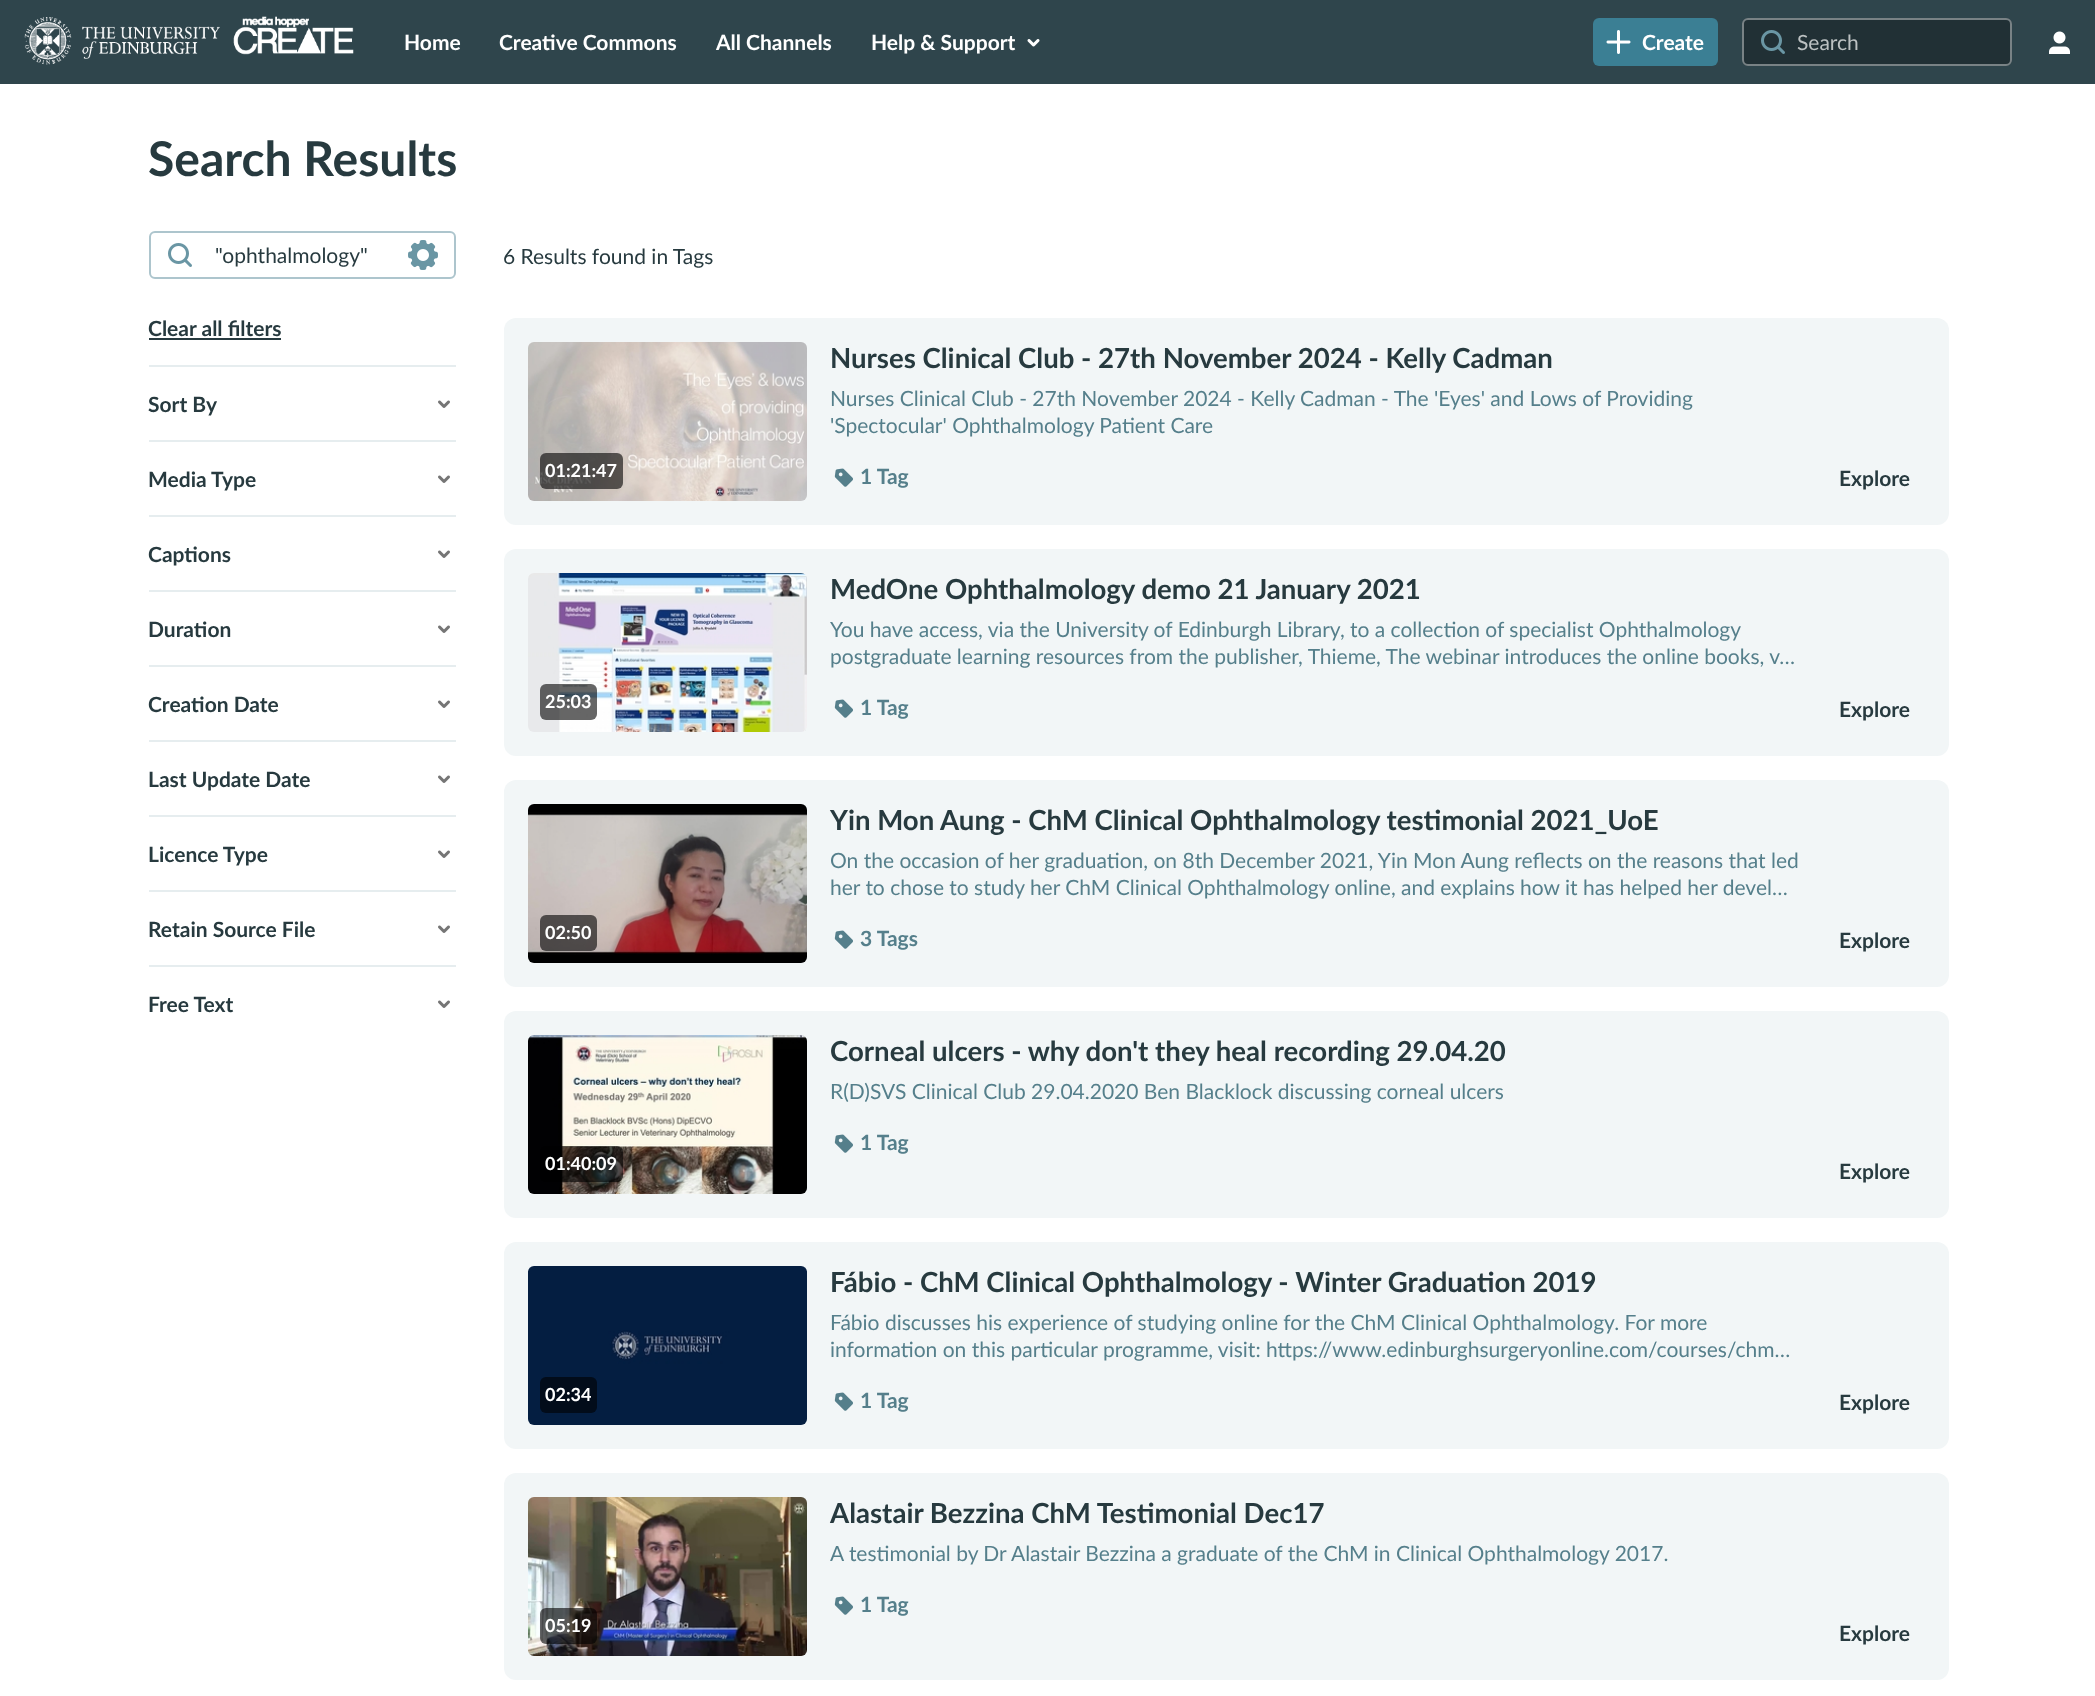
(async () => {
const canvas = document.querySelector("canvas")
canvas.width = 2095
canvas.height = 1696
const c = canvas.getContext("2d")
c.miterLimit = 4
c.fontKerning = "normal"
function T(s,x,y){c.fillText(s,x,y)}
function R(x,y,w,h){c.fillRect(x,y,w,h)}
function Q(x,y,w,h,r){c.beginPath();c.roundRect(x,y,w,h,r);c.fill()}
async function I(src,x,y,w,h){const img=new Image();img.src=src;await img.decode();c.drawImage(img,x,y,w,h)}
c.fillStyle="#fff"
R(0,0,2095,1696)
c.fillStyle="#2f454c"
R(0,0,2095,84)
await I("1.png",24,16,330,49)
c.font="bold 21px Lato"
c.fillStyle="#fff"
T("Home",404,50)
T("Creative Commons",499,50)
T("All Channels",716,50)
T("Help & Support",871,50)
await I("2.png",1027,39,13,8)
c.fillStyle="#3b7f94"
Q(1593,18,125,48,6)
await I("3.png",1606,30,25,24)
c.fillStyle="#fff"
T("Create",1642,50)
c.fillStyle="#213035"
Q(1742,18,270,48,6)
c.beginPath()
c.roundRect(1743,19,268,46,5)
c.strokeStyle="#ffffff66"
c.lineWidth=2
c.stroke()
await I("4.png",1761,30,24,24)
c.font="21px Lato"
c.fillStyle="#bcc1c2"
T("Search",1797,50)
await I("5.png",2049,31,21,23)
c.font="bold 48px Lato"
c.fillStyle="#273a3f"
T("Search Results",148,176)
c.beginPath()
c.roundRect(150,232,305,46,5)
c.strokeStyle="#adc5cd"
c.stroke()
await I("6.png",168,243,24,24)
c.font="21px Lato"
T("\"ophthalmology\"",215,263)
await I("7.png",408,240,30,30)
c.font="bold 21px Lato"
T("Clear all filters",148,336)
R(149,338,132,2)
c.fillStyle="#e6edef"
R(149,365,307,2)
c.fillStyle="#273a3f"
T("Sort By",148,412)
await I("8.png",438,400,12,8)
c.fillStyle="#e6edef"
R(149,440,307,2)
c.fillStyle="#273a3f"
T("Media Type",148,487)
await I("8.png",438,475,12,8)
c.fillStyle="#e6edef"
R(149,515,307,2)
c.fillStyle="#273a3f"
T("Captions",148,562)
await I("8.png",438,550,12,8)
c.fillStyle="#e6edef"
R(149,590,307,2)
c.fillStyle="#273a3f"
T("Duration",148,637)
await I("8.png",438,625,12,8)
c.fillStyle="#e6edef"
R(149,665,307,2)
c.fillStyle="#273a3f"
T("Creation Date",148,712)
await I("8.png",438,700,12,8)
c.fillStyle="#e6edef"
R(149,740,307,2)
c.fillStyle="#273a3f"
T("Last Update Date",148,787)
await I("8.png",438,775,12,8)
c.fillStyle="#e6edef"
R(149,815,307,2)
c.fillStyle="#273a3f"
T("Licence Type",148,862)
await I("8.png",438,850,12,8)
c.fillStyle="#e6edef"
R(149,890,307,2)
c.fillStyle="#273a3f"
T("Retain Source File",148,937)
await I("8.png",438,925,12,8)
c.fillStyle="#e6edef"
R(149,965,307,2)
c.fillStyle="#273a3f"
T("Free Text",148,1012)
await I("8.png",438,1000,12,8)
c.font="21px Lato"
T("6 Results found in Tags",503,264)
c.fillStyle="#f2f6f7"
Q(504,318,1445,207,12)
await I("9.png",528,342,279,159)
c.fillStyle="#00000099"
Q(540,453,83,36,6)
c.font="bold 18px Lato"
c.fillStyle="#fff"
T("01:21:47",545,477)
c.font="bold 27.6px Lato"
c.fillStyle="#273a3f"
T("Nurses Clinical Club - 27th November 2024 - Kelly Cadman",830,368)
c.font="21px Lato"
c.fillStyle="#557f8b"
T("Nurses Clinical Club - 27th November 2024 - Kelly Cadman - The 'Eyes' and Lows of Providing",830,406)
T("'Spectocular' Ophthalmology Patient Care",830,433)
await I("10.png",834,468,19,19)
c.font="bold 21px Lato"
T("1 Tag",860,484)
c.fillStyle="#273a3f"
T("Explore",1839,486)
c.fillStyle="#f2f6f7"
Q(504,549,1445,207,12)
await I("11.png",528,573,279,159)
c.fillStyle="#00000099"
Q(540,684,57,36,6)
c.font="bold 18px Lato"
c.fillStyle="#fff"
T("25:03",545,708)
c.font="bold 27.6px Lato"
c.fillStyle="#273a3f"
T("MedOne Ophthalmology demo 21 January 2021",830,599)
c.font="21px Lato"
c.fillStyle="#557f8b"
T("You have access, via the University of Edinburgh Library, to a collection of specialist Ophthalmology",830,637)
T("postgraduate learning resources from the publisher, Thieme, The webinar introduces the online books, v…",830,664)
await I("10.png",834,699,19,19)
c.font="bold 21px Lato"
T("1 Tag",860,715)
c.fillStyle="#273a3f"
T("Explore",1839,717)
c.fillStyle="#f2f6f7"
Q(504,780,1445,207,12)
await I("12.png",528,804,279,159)
c.fillStyle="#00000099"
Q(540,915,57,36,6)
c.font="bold 18px Lato"
c.fillStyle="#fff"
T("02:50",545,939)
c.font="bold 27.6px Lato"
c.fillStyle="#273a3f"
T("Yin Mon Aung - ChM Clinical Ophthalmology testimonial 2021_UoE",830,830)
c.font="21px Lato"
c.fillStyle="#557f8b"
T("On the occasion of her graduation, on 8th December 2021, Yin Mon Aung reflects on the reasons that led",830,868)
T("her to chose to study her ChM Clinical Ophthalmology online, and explains how it has helped her devel…",830,895)
await I("10.png",834,930,19,19)
c.font="bold 21px Lato"
T("3 Tags",860,946)
c.fillStyle="#273a3f"
T("Explore",1839,948)
c.fillStyle="#f2f6f7"
Q(504,1011,1445,207,12)
c.font="bold 27.6px Lato"
c.fillStyle="#273a3f"
T("Corneal ulcers - why don't they heal recording 29.04.20",830,1061)
c.font="21px Lato"
c.fillStyle="#557f8b"
T("R(D)SVS Clinical Club 29.04.2020 Ben Blacklock discussing corneal ulcers",830,1099)
await I("10.png",834,1134,19,19)
c.font="bold 21px Lato"
T("1 Tag",860,1150)
await I("13.png",528,1035,279,159)
c.fillStyle="#00000099"
Q(540,1146,83,36,6)
c.font="bold 18px Lato"
c.fillStyle="#fff"
T("01:40:09",545,1170)
c.font="bold 21px Lato"
c.fillStyle="#273a3f"
T("Explore",1839,1179)
c.fillStyle="#f2f6f7"
Q(504,1242,1445,207,12)
await I("14.png",528,1266,279,159)
c.fillStyle="#020c1a"
Q(540,1377,57,36,6)
c.font="bold 18px Lato"
c.fillStyle="#fff"
T("02:34",545,1401)
c.font="bold 27.6px Lato"
c.fillStyle="#273a3f"
T("Fábio - ChM Clinical Ophthalmology - Winter Graduation 2019",830,1292)
c.font="21px Lato"
c.fillStyle="#557f8b"
T("Fábio discusses his experience of studying online for the ChM Clinical Ophthalmology. For more",830,1330)
T("information on this particular programme, visit: https://www.edinburghsurgeryonline.com/courses/chm…",830,1357)
await I("10.png",834,1392,19,19)
c.font="bold 21px Lato"
T("1 Tag",860,1408)
c.fillStyle="#273a3f"
T("Explore",1839,1410)
c.fillStyle="#f2f6f7"
Q(504,1473,1445,207,12)
c.font="bold 27.6px Lato"
c.fillStyle="#273a3f"
T("Alastair Bezzina ChM Testimonial Dec17",830,1523)
c.font="21px Lato"
c.fillStyle="#557f8b"
T("A testimonial by Dr Alastair Bezzina a graduate of the ChM in Clinical Ophthalmology 2017.",830,1561)
await I("10.png",834,1596,19,19)
c.font="bold 21px Lato"
T("1 Tag",860,1612)
await I("15.png",528,1497,279,159)
c.fillStyle="#00000099"
Q(540,1608,57,36,6)
c.font="bold 18px Lato"
c.fillStyle="#fff"
T("05:19",545,1632)
c.font="bold 21px Lato"
c.fillStyle="#273a3f"
T("Explore",1839,1641)
})()
